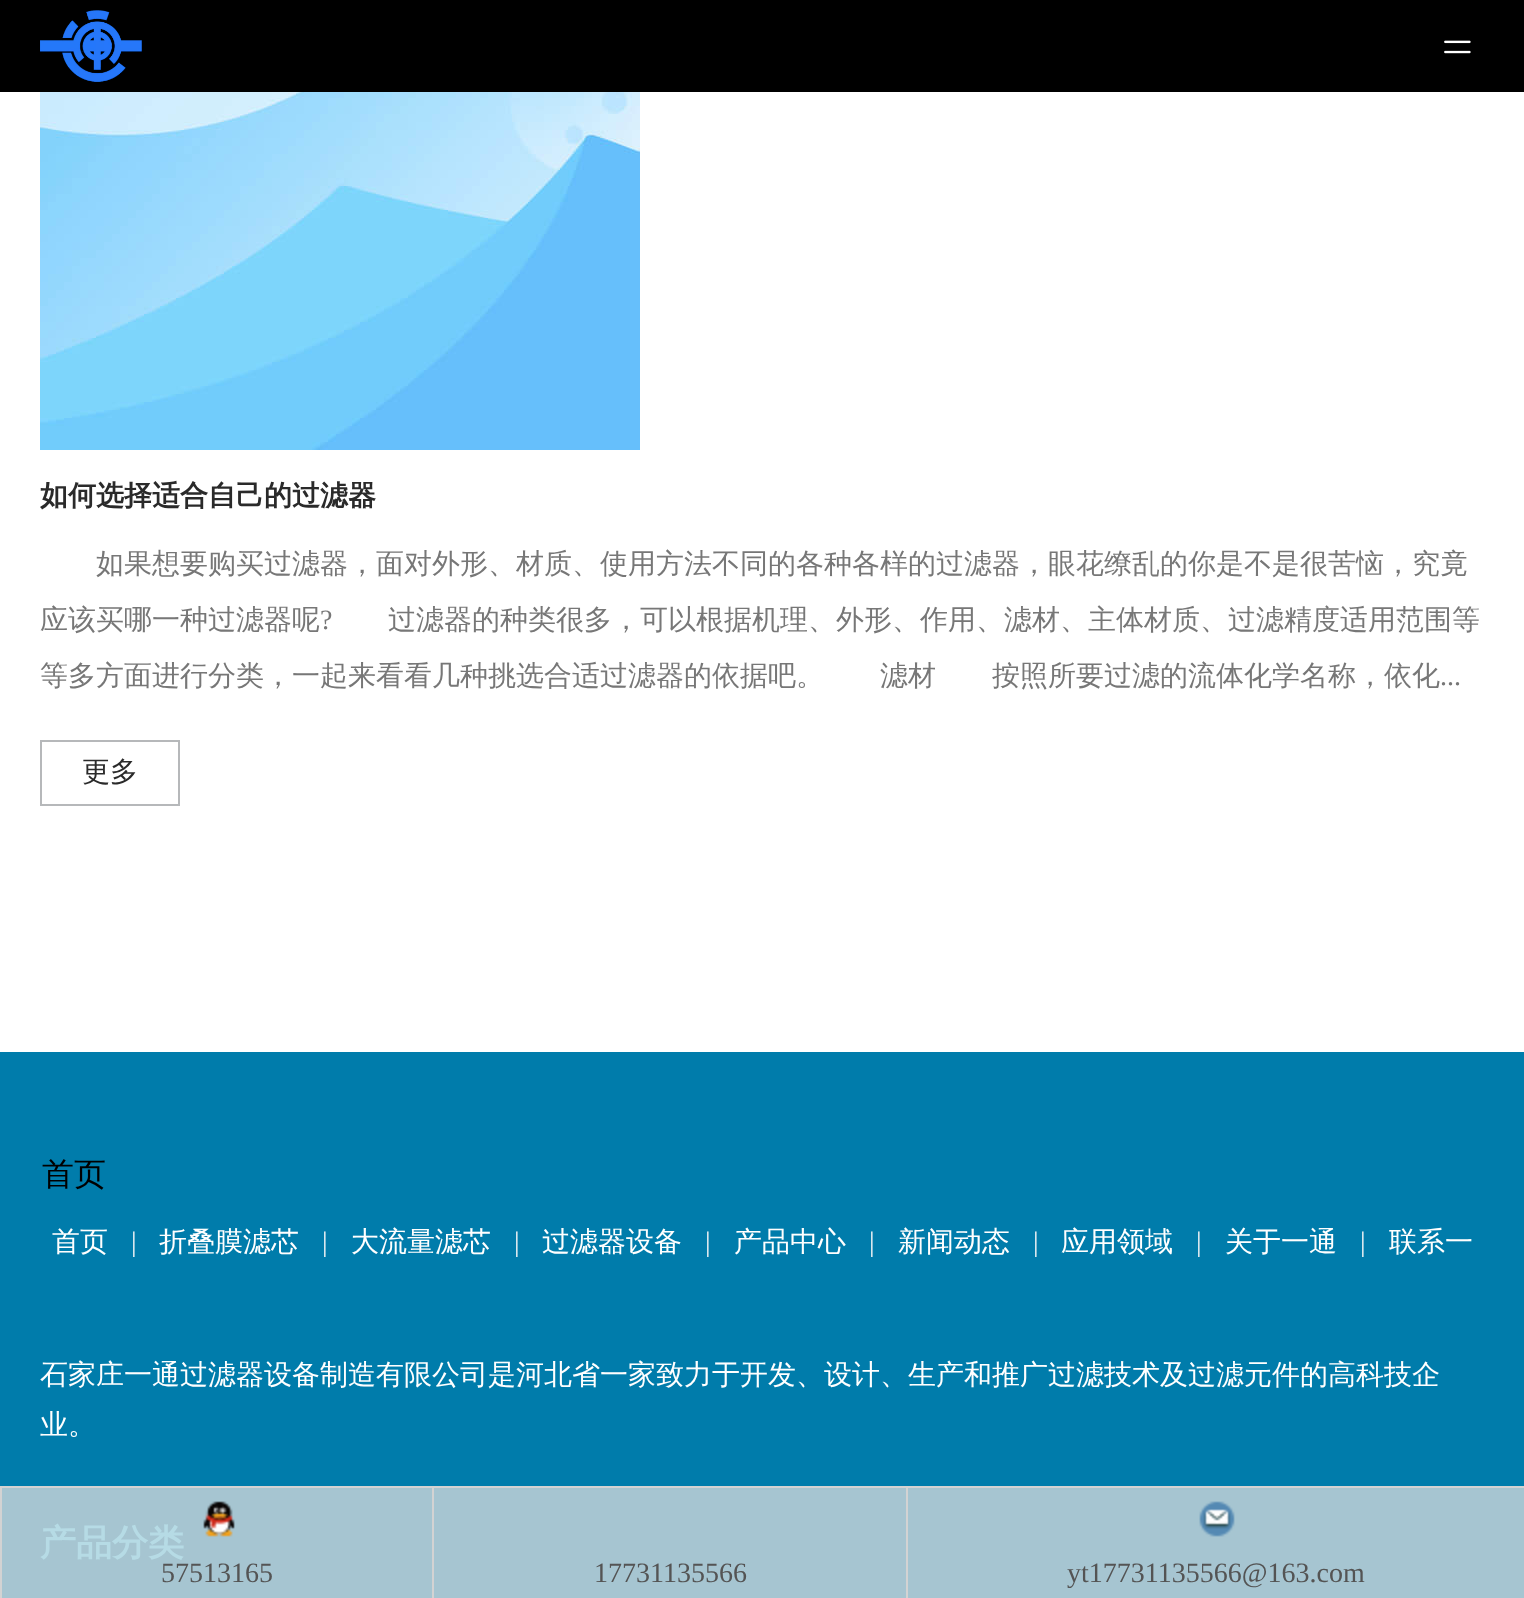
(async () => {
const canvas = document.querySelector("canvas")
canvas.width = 1524
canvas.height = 1598
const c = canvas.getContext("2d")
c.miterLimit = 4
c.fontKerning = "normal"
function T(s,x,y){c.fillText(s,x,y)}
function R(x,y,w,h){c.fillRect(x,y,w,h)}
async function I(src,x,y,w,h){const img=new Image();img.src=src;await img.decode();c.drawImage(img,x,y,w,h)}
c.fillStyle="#fff"
R(0,0,1524,1598)
c.fillStyle="#000"
R(0,0,1524,92)
await I("1.png",40,10,102,72)
await I("2.png",1444,40,27,14)
await I("3.png",40,92,600,358)
c.font="bold 28px WenQuanYi Zen Hei"
c.fillStyle="#2a2a2a"
T("如何选择适合自己的过滤器",40,505)
c.font="500 28px WenQuanYi Zen Hei"
c.fillStyle="#777"
T("如果想要购买过滤器，面对外形、材质、使用方法不同的各种各样的过滤器，眼花缭乱的你是不是很苦恼，究竟",96,573)
T("应该买哪一种过滤器呢",40,629)
c.font="28px Liberation Serif"
T("?",320,629)
c.font="500 28px WenQuanYi Zen Hei"
T("过滤器的种类很多，可以根据机理、外形、作用、滤材、主体材质、过滤精度适用范围等",388,629)
T("等多方面进行分类，一起来看看几种挑选合适过滤器的依据吧。　　滤材　　按照所要过滤的流体化学名称，依化",40,685)
c.font="28px Liberation Serif"
T("...",1440,685)
c.strokeStyle="#b6b8ba"
c.lineWidth=2
c.strokeRect(41,741,138,64)
c.font="500 28px WenQuanYi Zen Hei"
c.fillStyle="#2a2a2a"
T("更多",82,781)
c.fillStyle="#007cab"
R(0,1052,1524,434)
c.font="500 32px WenQuanYi Zen Hei"
c.fillStyle="#000"
T("首页",42,1185)
c.font="500 28px WenQuanYi Zen Hei"
c.fillStyle="#fff"
T("首页",52,1251)
c.font="28px Liberation Serif"
c.fillStyle="#eff2f5"
T("|",131,1251)
c.font="500 28px WenQuanYi Zen Hei"
c.fillStyle="#fff"
T("折叠膜滤芯",159,1251)
c.font="28px Liberation Serif"
c.fillStyle="#eff2f5"
T("|",322,1251)
c.font="500 28px WenQuanYi Zen Hei"
c.fillStyle="#fff"
T("大流量滤芯",351,1251)
c.font="28px Liberation Serif"
c.fillStyle="#eff2f5"
T("|",514,1251)
c.font="500 28px WenQuanYi Zen Hei"
c.fillStyle="#fff"
T("过滤器设备",542,1251)
c.font="28px Liberation Serif"
c.fillStyle="#eff2f5"
T("|",705,1251)
c.font="500 28px WenQuanYi Zen Hei"
c.fillStyle="#fff"
T("产品中心",734,1251)
c.font="28px Liberation Serif"
c.fillStyle="#eff2f5"
T("|",869,1251)
c.font="500 28px WenQuanYi Zen Hei"
c.fillStyle="#fff"
T("新闻动态",898,1251)
c.font="28px Liberation Serif"
c.fillStyle="#eff2f5"
T("|",1033,1251)
c.font="500 28px WenQuanYi Zen Hei"
c.fillStyle="#fff"
T("应用领域",1061,1251)
c.font="28px Liberation Serif"
c.fillStyle="#eff2f5"
T("|",1196,1251)
c.font="500 28px WenQuanYi Zen Hei"
c.fillStyle="#fff"
T("关于一通",1225,1251)
c.font="28px Liberation Serif"
c.fillStyle="#eff2f5"
T("|",1360,1251)
c.font="500 28px WenQuanYi Zen Hei"
c.fillStyle="#fff"
T("联系一",1389,1251)
c.fillStyle="#a6c5d1"
R(2,1488,1522,110)
c.fillStyle="#fff"
T("石家庄一通过滤器设备制造有限公司是河北省一家致力于开发、设计、生产和推广过滤技术及过滤元件的高科技企",40,1384)
T("业。",40,1434)
c.font="bold 36px WenQuanYi Zen Hei"
c.fillStyle="#b6dbe5"
T("产品分类",40,1555)
c.fillStyle="#d3d3d3"
R(0,1486,1524,2)
R(0,1488,2,110)
await I("4.png",203,1501,32,36)
c.font="28px Liberation Serif"
c.fillStyle="#545454"
T("57513165",161,1582)
c.fillStyle="#d3d3d3"
R(432,1488,2,110)
c.fillStyle="#545454"
T("17731135566",594,1582)
c.fillStyle="#d3d3d3"
R(906,1488,2,110)
await I("5.png",1199,1501,36,36)
c.fillStyle="#545454"
T("yt17731135566@163.com",1067,1582)
})()
